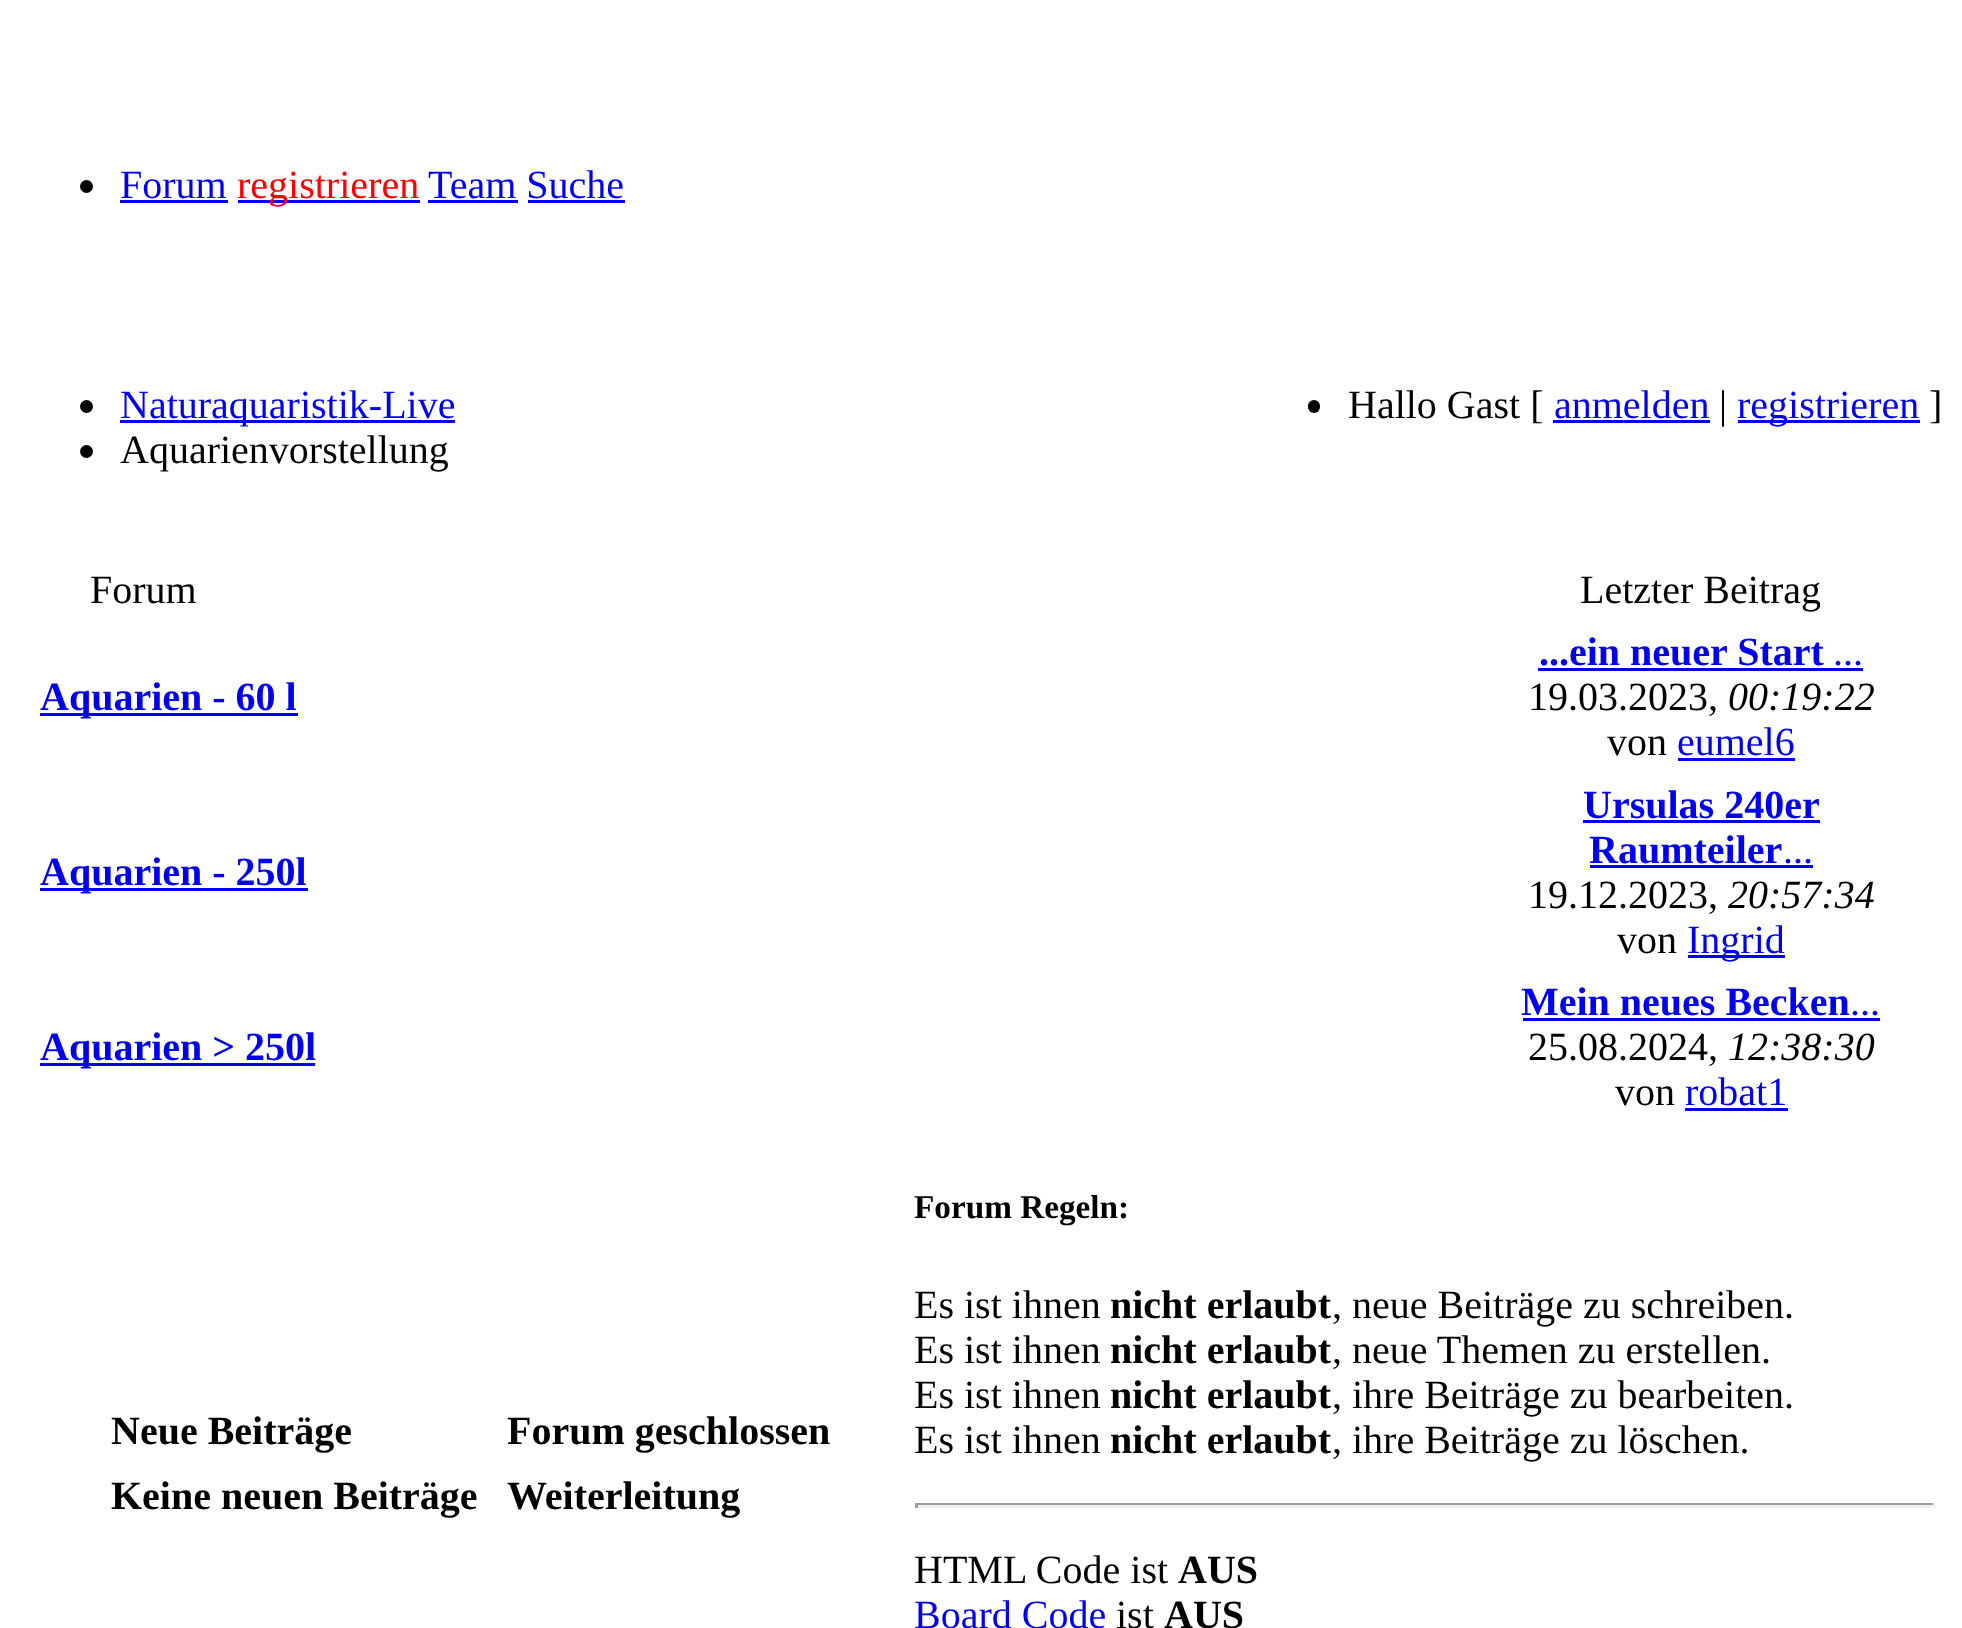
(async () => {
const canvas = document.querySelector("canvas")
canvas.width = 1962
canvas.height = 1628
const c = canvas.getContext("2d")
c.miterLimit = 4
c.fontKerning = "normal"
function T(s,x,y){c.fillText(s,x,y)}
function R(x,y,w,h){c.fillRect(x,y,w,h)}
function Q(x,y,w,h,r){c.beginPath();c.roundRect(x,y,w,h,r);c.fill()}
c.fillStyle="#fff"
R(0,0,1962,1628)
c.fillStyle="#000"
c.beginPath()
c.arc(86.5,186.5,6.5,0,7)
c.fill()
c.font="40px Liberation Serif"
c.fillStyle="#00e"
T("Forum",120,198)
R(120,200,108,3)
R(238,200,182,3)
c.fillStyle="#f00"
T("registrieren",237,198)
c.fillStyle="#00e"
T("Team Suche",428,198)
R(428,200,90,3)
R(528,200,97,3)
c.fillStyle="#000"
c.beginPath()
c.arc(86.5,406.5,6.5,0,7)
c.fill()
c.fillStyle="#00e"
R(120,420,335,3)
T("Naturaquaristik-Live",120,418)
c.fillStyle="#000"
Q(1308,400,12,13,6)
T("Hallo Gast [",1348,418)
c.fillStyle="#00e"
T("anmelden",1554,418)
R(1553,420,157,3)
c.fillStyle="#000"
T("|",1719,418)
c.fillStyle="#00e"
R(1738,420,182,3)
T("registrieren",1737,418)
c.fillStyle="#000"
T("]",1929,418)
c.beginPath()
c.arc(86.5,451.5,6.5,0,7)
c.fill()
T("Aquarienvorstellung",120,463)
T("Forum",90,603)
T("Letzter Beitrag",1580,603)
c.fillStyle="#00e"
R(40,713,258,3)
c.font="bold 40px Liberation Serif"
T("Aquarien - 60 l",40,710)
T("...ein neuer Start",1539,665)
c.font="40px Liberation Serif"
T("...",1833,665)
R(1538,668,325,3)
c.fillStyle="#000"
T("19.03.2023,",1528,710)
c.font="italic 40px Liberation Serif"
T("00:19:22",1728,710)
c.font="40px Liberation Serif"
T("von",1607,755)
c.fillStyle="#00e"
T("eumel6",1677,755)
R(1678,758,117,3)
R(40,888,268,3)
c.font="bold 40px Liberation Serif"
T("Aquarien - 250l",40,885)
T("Ursulas 240er",1583,818)
R(1583,820,237,3)
T("Raumteiler",1589,863)
c.font="40px Liberation Serif"
T("...",1783,863)
R(1590,865,223,3)
c.fillStyle="#000"
T("19.12.2023,",1528,908)
c.font="italic 40px Liberation Serif"
T("20:57:34",1728,908)
c.font="40px Liberation Serif"
T("von",1617,953)
c.fillStyle="#00e"
R(1688,955,97,3)
T("Ingrid",1687,953)
R(40,1063,275,3)
c.font="bold 40px Liberation Serif"
T("Aquarien > 250l",40,1060)
T("Mein neues Becken",1521,1015)
c.font="40px Liberation Serif"
T("...",1850,1015)
R(1523,1018,357,3)
c.fillStyle="#000"
T("25.08.2024,",1528,1060)
c.font="italic 40px Liberation Serif"
T("12:38:30",1728,1060)
c.font="40px Liberation Serif"
T("von",1615,1105)
c.fillStyle="#00e"
T("robat1",1685,1105)
R(1685,1108,103,3)
c.font="bold 40px Liberation Serif"
c.fillStyle="#000"
T("Neue Beiträge",111,1444)
T("Forum geschlossen",507,1444)
T("Keine neuen Beiträge",111,1509)
T("Weiterleitung",507,1509)
c.font="bold 33.25px Liberation Serif"
T("Forum Regeln:",914,1218)
c.font="40px Liberation Serif"
T("Es ist ihnen",914,1318)
c.font="bold 40px Liberation Serif"
T("nicht erlaubt",1110,1318)
c.font="40px Liberation Serif"
T(", neue Beiträge zu schreiben.",1332,1318)
T("Es ist ihnen",914,1363)
c.font="bold 40px Liberation Serif"
T("nicht erlaubt",1110,1363)
c.font="40px Liberation Serif"
T(", neue Themen zu erstellen.",1332,1363)
T("Es ist ihnen",914,1408)
c.font="bold 40px Liberation Serif"
T("nicht erlaubt",1110,1408)
c.font="40px Liberation Serif"
T(", ihre Beiträge zu bearbeiten.",1332,1408)
T("Es ist ihnen",914,1453)
c.font="bold 40px Liberation Serif"
T("nicht erlaubt",1110,1453)
c.font="40px Liberation Serif"
T(", ihre Beiträge zu löschen.",1332,1453)
c.fillStyle="#9f9f9f"
R(915,1503,1020,2)
c.fillStyle="#eee"
R(1933,1503,3,5)
R(915,1505,1020,3)
c.fillStyle="#9f9f9f"
R(915,1503,3,5)
c.fillStyle="#000"
T("HTML Code ist",914,1583)
c.font="bold 40px Liberation Serif"
T("AUS",1178,1583)
c.font="40px Liberation Serif"
c.fillStyle="#00e"
T("Board Code",914,1628)
c.fillStyle="#000"
T("ist",1116,1628)
c.font="bold 40px Liberation Serif"
T("AUS",1164,1628)
})()
